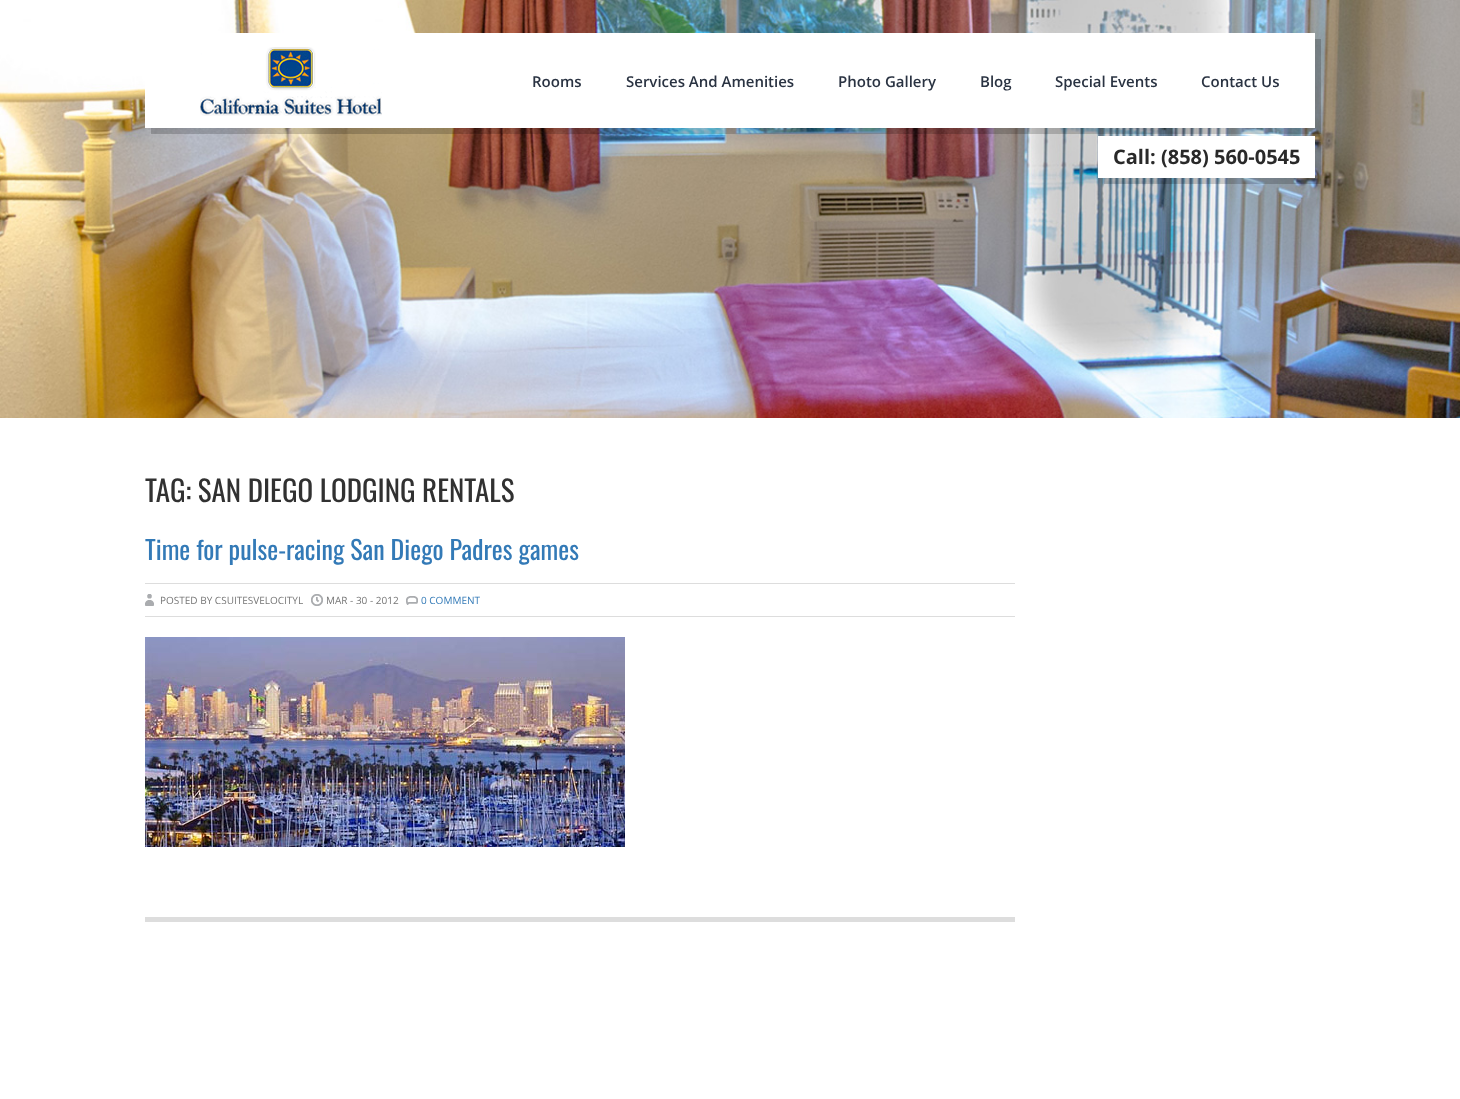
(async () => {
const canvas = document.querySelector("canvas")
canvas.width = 1460
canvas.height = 1099
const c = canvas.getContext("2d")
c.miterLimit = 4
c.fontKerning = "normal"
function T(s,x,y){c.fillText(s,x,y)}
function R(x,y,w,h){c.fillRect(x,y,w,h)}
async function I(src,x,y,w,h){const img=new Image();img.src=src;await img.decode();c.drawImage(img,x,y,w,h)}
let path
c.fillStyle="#fff"
R(0,0,1460,1099)
await I("1.png",0,0,1460,418)
c.fillStyle="#00000030"
path = new Path2D("M151 128v6h1170v-95h-6v89z")
c.fill(path)
c.fillStyle="#fff"
R(145,33,1170,95)
await I("2.png",200,47,182,69)
c.font="600 15px Open Sans"
c.fillStyle="#2a3342"
T("Rooms",532,87)
T("Services And Amenities",626,87)
T("Photo Gallery",838,87)
T("Blog",980,87)
T("Special Events",1055,87)
T("Contact Us",1201,87)
c.fillStyle="#00000030"
path = new Path2D("M1104 178v6h217v-42h-6v36z")
c.fill(path)
c.fillStyle="#fff"
R(1098,136,217,42)
c.font="bold 20px Open Sans"
c.fillStyle="#292929"
T("Call: (858) 560-0545",1113,164)
c.font="29px Oswald"
c.fillStyle="#313131"
T("TAG: SAN DIEGO LODGING RENTALS",145,502)
c.fillStyle="#ddd"
R(145,917,870,5)
c.font="26px Oswald"
c.fillStyle="#337ab7"
T("Time for pulse-racing San Diego Padres games",145,560)
c.fillStyle="#ddd"
R(145,583,870,1)
R(145,616,870,1)
await I("3.png",145,594,9,12)
c.font="10px Open Sans"
c.fillStyle="#777"
T("POSTED BY CSUITESVELOCITYL",160,604)
await I("4.png",311,594,12,12)
T("MAR - 30 - 2012",326,604)
await I("5.png",406,596,12,9)
c.fillStyle="#337ab7"
T("0 COMMENT",421,604)
await I("6.png",145,637,480,210)
})()
